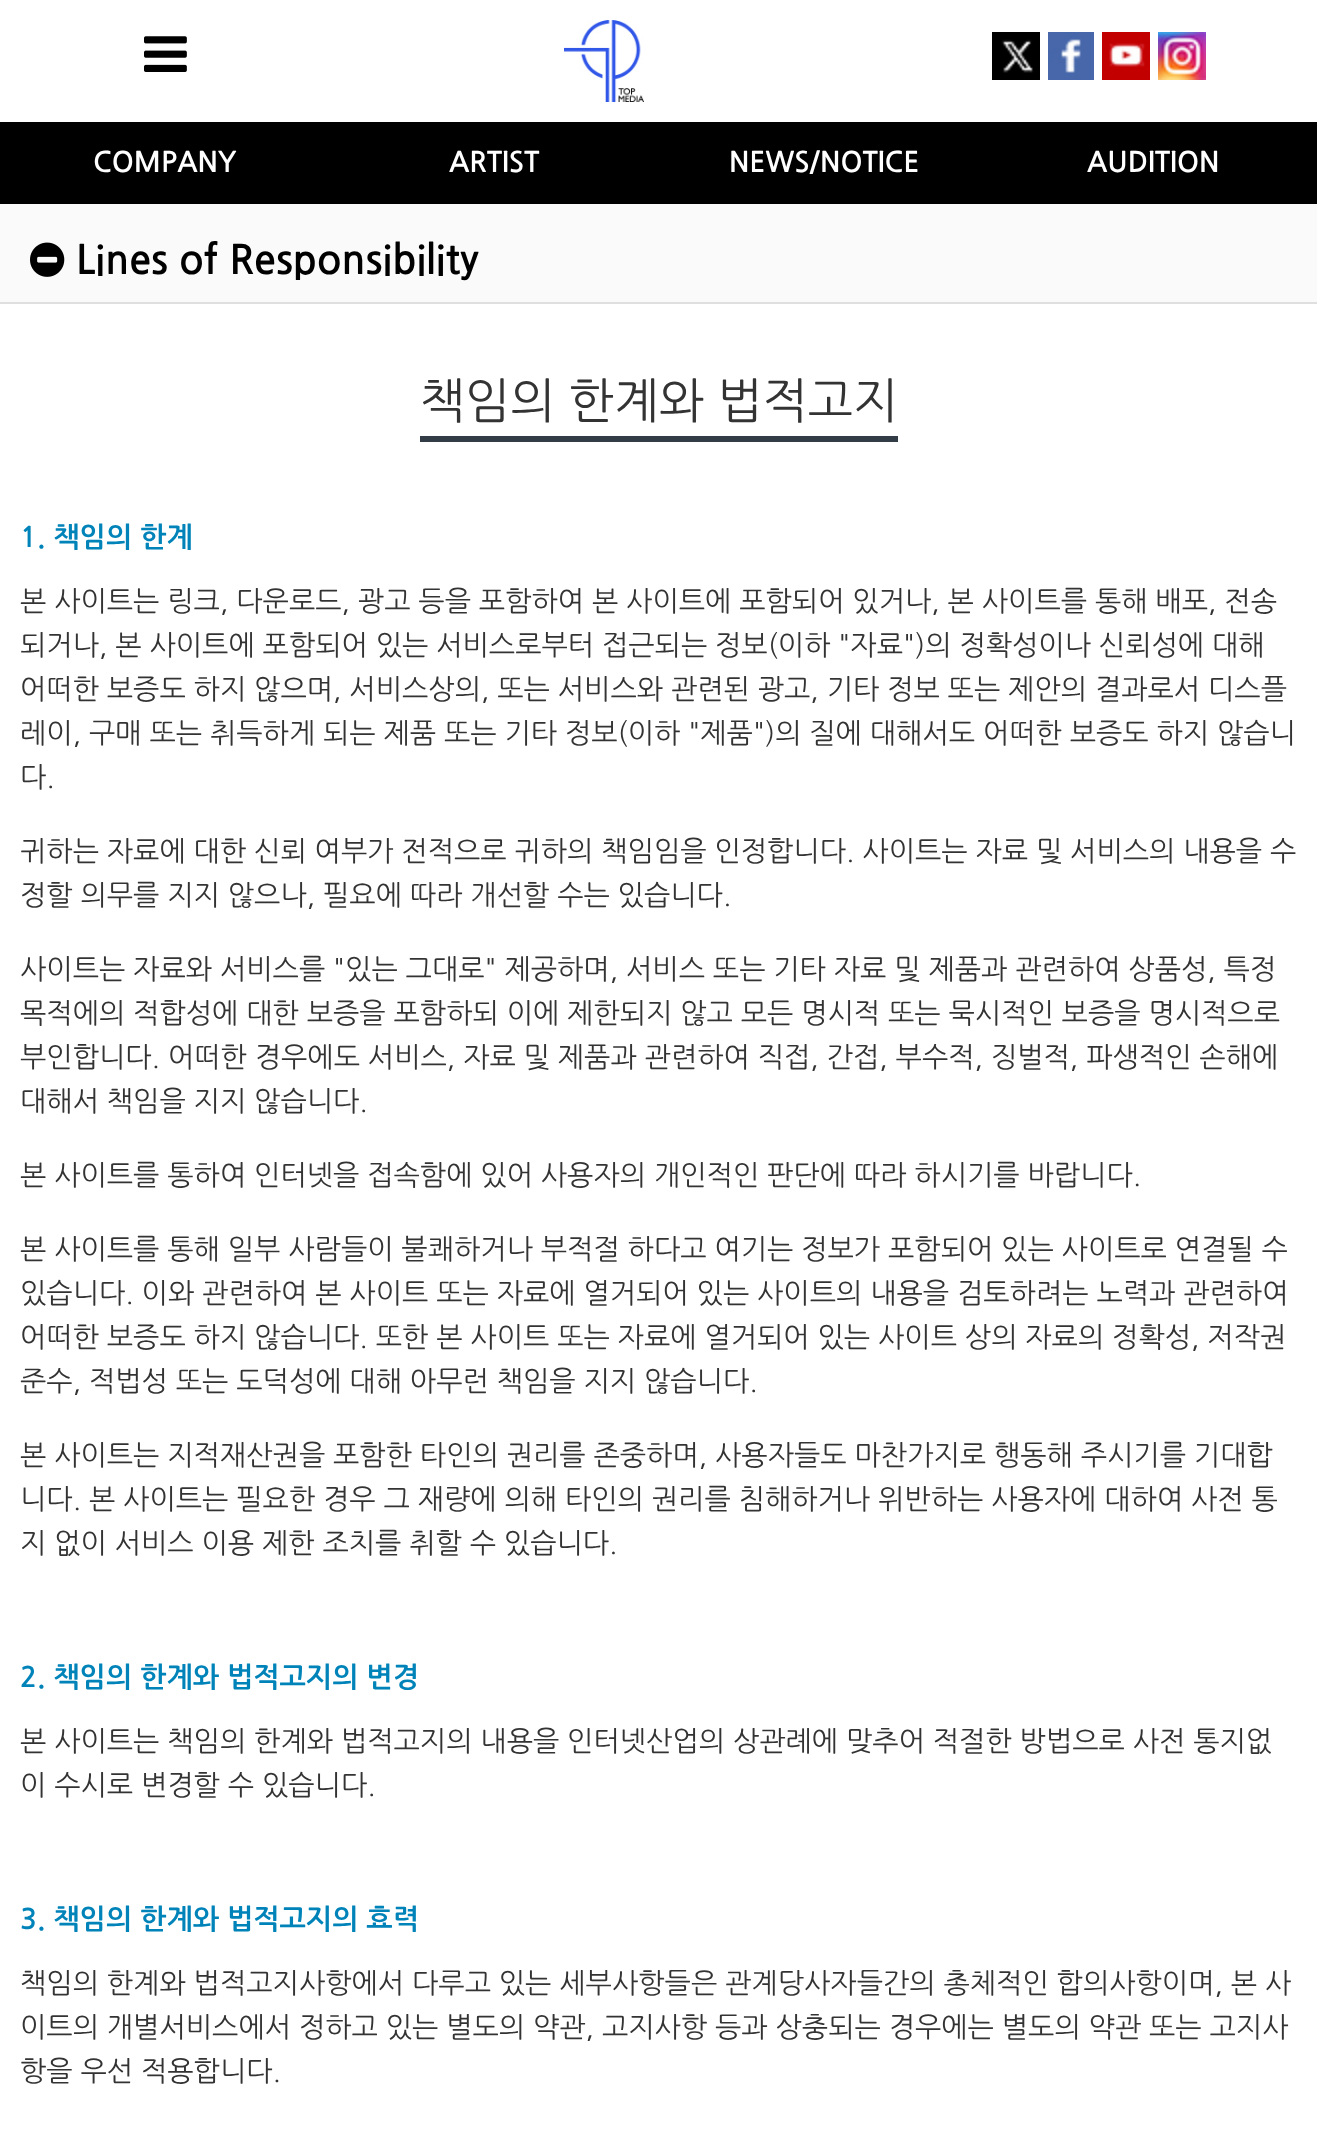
(async () => {
const canvas = document.querySelector("canvas")
canvas.width = 1317
canvas.height = 2152
const c = canvas.getContext("2d")
c.miterLimit = 4
c.fontKerning = "normal"
function T(s,x,y){c.fillText(s,x,y)}
function R(x,y,w,h){c.fillRect(x,y,w,h)}
async function I(src,x,y,w,h){const img=new Image();img.src=src;await img.decode();c.drawImage(img,x,y,w,h)}
c.fillStyle="#fff"
R(0,0,1317,2152)
await I("1.png",144,36,43,36)
await I("2.png",564,20,80,82)
await I("3.png",992,32,48,48)
await I("4.png",1048,32,46,48)
await I("5.png",1102,32,48,48)
await I("6.png",1158,32,48,48)
c.fillStyle="#000"
R(0,122,1317,82)
c.font="bold 28px NanumGothic"
c.fillStyle="#fff"
T("COMPANY",93,172)
T("ARTIST",449,172)
T("NEWS/NOTICE",729,172)
T("AUDITION",1087,172)
c.fillStyle="#fafafa"
R(0,204,1317,98)
c.fillStyle="#dfdfdf"
R(0,302,1317,2)
await I("7.png",30,242,35,35)
c.font="bold 40px NanumGothic"
c.fillStyle="#000"
T("Lines of Responsibility",76,274)
c.fillStyle="#323c46"
R(420,436,478,6)
c.font="48px NanumGothic"
c.fillStyle="#333"
T("책임의 한계와 법적고지",420,418)
c.font="bold 28px NanumGothic"
c.fillStyle="#0083b9"
T("1. 책임의 한계",20,547)
c.font="28px NanumGothic"
c.fillStyle="#333"
T("본 사이트는 링크, 다운로드, 광고 등을 포함하여 본 사이트에 포함되어 있거나, 본 사이트를 통해 배포, 전송",20,611)
T("되거나, 본 사이트에 포함되어 있는 서비스로부터 접근되는 정보(이하 \"자료\")의 정확성이나 신뢰성에 대해",20,655)
T("어떠한 보증도 하지 않으며, 서비스상의, 또는 서비스와 관련된 광고, 기타 정보 또는 제안의 결과로서 디스플",20,699)
T("레이, 구매 또는 취득하게 되는 제품 또는 기타 정보(이하 \"제품\")의 질에 대해서도 어떠한 보증도 하지 않습니",20,743)
T("다.",20,787)
T("귀하는 자료에 대한 신뢰 여부가 전적으로 귀하의 책임임을 인정합니다. 사이트는 자료 및 서비스의 내용을 수",20,861)
T("정할 의무를 지지 않으나, 필요에 따라 개선할 수는 있습니다.",20,905)
T("사이트는 자료와 서비스를 \"있는 그대로\" 제공하며, 서비스 또는 기타 자료 및 제품과 관련하여 상품성, 특정",20,979)
T("목적에의 적합성에 대한 보증을 포함하되 이에 제한되지 않고 모든 명시적 또는 묵시적인 보증을 명시적으로",20,1023)
T("부인합니다. 어떠한 경우에도 서비스, 자료 및 제품과 관련하여 직접, 간접, 부수적, 징벌적, 파생적인 손해에",20,1067)
T("대해서 책임을 지지 않습니다.",20,1111)
T("본 사이트를 통하여 인터넷을 접속함에 있어 사용자의 개인적인 판단에 따라 하시기를 바랍니다.",20,1185)
T("본 사이트를 통해 일부 사람들이 불쾌하거나 부적절 하다고 여기는 정보가 포함되어 있는 사이트로 연결될 수",20,1259)
T("있습니다. 이와 관련하여 본 사이트 또는 자료에 열거되어 있는 사이트의 내용을 검토하려는 노력과 관련하여",20,1303)
T("어떠한 보증도 하지 않습니다. 또한 본 사이트 또는 자료에 열거되어 있는 사이트 상의 자료의 정확성, 저작권",20,1347)
T("준수, 적법성 또는 도덕성에 대해 아무런 책임을 지지 않습니다.",20,1391)
T("본 사이트는 지적재산권을 포함한 타인의 권리를 존중하며, 사용자들도 마찬가지로 행동해 주시기를 기대합",20,1465)
T("니다. 본 사이트는 필요한 경우 그 재량에 의해 타인의 권리를 침해하거나 위반하는 사용자에 대하여 사전 통",20,1509)
T("지 없이 서비스 이용 제한 조치를 취할 수 있습니다.",20,1553)
c.font="bold 28px NanumGothic"
c.fillStyle="#0083b9"
T("2. 책임의 한계와 법적고지의 변경",20,1687)
c.font="28px NanumGothic"
c.fillStyle="#333"
T("본 사이트는 책임의 한계와 법적고지의 내용을 인터넷산업의 상관례에 맞추어 적절한 방법으로 사전 통지없",20,1751)
T("이 수시로 변경할 수 있습니다.",20,1795)
c.font="bold 28px NanumGothic"
c.fillStyle="#0083b9"
T("3. 책임의 한계와 법적고지의 효력",20,1929)
c.font="28px NanumGothic"
c.fillStyle="#333"
T("책임의 한계와 법적고지사항에서 다루고 있는 세부사항들은 관계당사자들간의 총체적인 합의사항이며, 본 사",20,1993)
T("이트의 개별서비스에서 정하고 있는 별도의 약관, 고지사항 등과 상충되는 경우에는 별도의 약관 또는 고지사",20,2037)
T("항을 우선 적용합니다.",20,2081)
})()
